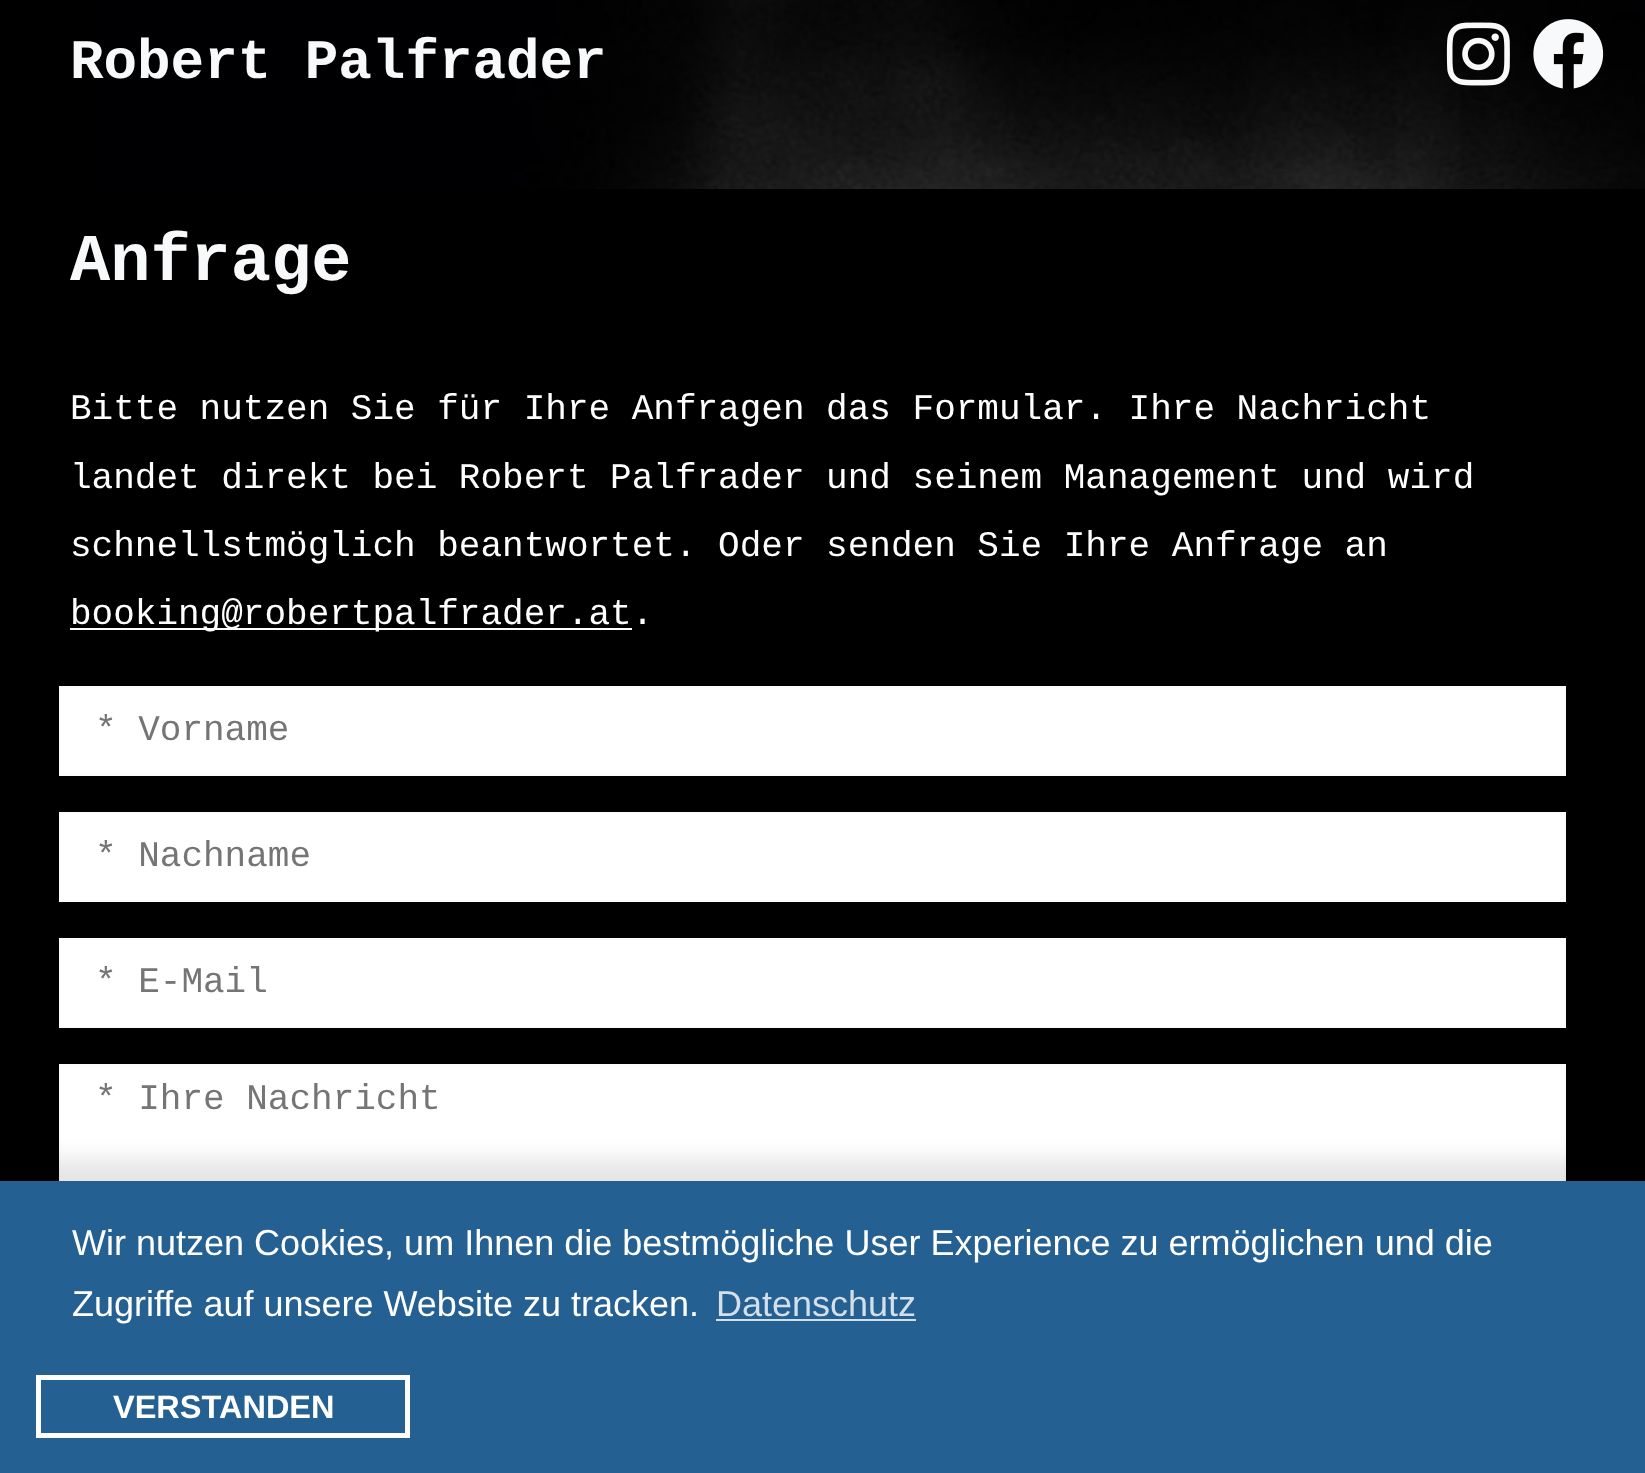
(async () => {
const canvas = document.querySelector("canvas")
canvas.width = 1645
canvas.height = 1473
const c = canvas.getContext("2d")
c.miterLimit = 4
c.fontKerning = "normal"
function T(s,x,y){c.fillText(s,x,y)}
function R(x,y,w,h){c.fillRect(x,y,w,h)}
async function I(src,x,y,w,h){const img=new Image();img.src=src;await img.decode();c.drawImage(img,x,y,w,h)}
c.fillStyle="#fff"
R(0,0,1645,1473)
await I("3.png",0,0,1645,189)
c.font="bold 55.9px Liberation Mono"
c.fillStyle="#f8f9fa"
T("Robert Palfrader",70,78)
await I("1.png",1446,22,64,64)
await I("2.png",1533,19,71,70)
c.fillStyle="#000"
R(0,189,1645,992)
c.font="bold 67px Liberation Mono"
c.fillStyle="#f8f9fa"
T("Anfrage",70,280)
c.font="36px Liberation Mono"
c.fillStyle="#fff"
T("Bitte nutzen Sie für Ihre Anfragen das Formular. Ihre Nachricht",70,419)
T("landet direkt bei Robert Palfrader und seinem Management und wird",70,488)
T("schnellstmöglich beantwortet. Oder senden Sie Ihre Anfrage an",70,556)
R(70,628,562,2)
T("booking@robertpalfrader.at.",70,624)
c.beginPath()
c.rect(60,687,1505,88)
c.fill()
c.strokeStyle="#fcfcfd"
c.lineWidth=2
c.stroke()
c.fillStyle="#757575"
T("* Vorname",95,740)
c.fillStyle="#fff"
c.beginPath()
c.rect(60,813,1505,88)
c.fill()
c.stroke()
c.fillStyle="#757575"
T("* Nachname",95,866)
c.fillStyle="#fff"
c.beginPath()
c.rect(60,939,1505,88)
c.fill()
c.stroke()
c.fillStyle="#757575"
T("* E-Mail",95,992)
c.fillStyle="#fff"
R(61,1066,1503,115)
c.strokeRect(60,1065,1505,345)
c.fillStyle="#757575"
T("* Ihre Nachricht",95,1109)
c.fillStyle="#0000001a"
c.filter="blur(11px)"
c.beginPath()
c.rect(0,1159,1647,292)
c.fill()
c.filter="none"
c.fillStyle="#256092"
R(0,1181,1645,292)
c.font="36px Liberation Sans"
c.fillStyle="#fff"
T("Wir nutzen Cookies, um Ihnen die bestmögliche User Experience zu ermöglichen und die",72,1255)
T("Zugriffe auf unsere Website zu tracken.",72,1316)
c.fillStyle="#d3dfe9"
T("Datenschutz",716,1316)
R(716,1319,200,2)
c.strokeStyle="#fff"
c.lineWidth=5
c.strokeRect(38.5,1377.5,369,58)
c.font="bold 32.5px Liberation Sans"
c.fillStyle="#fff"
T("VERSTANDEN",113,1418)
})()
